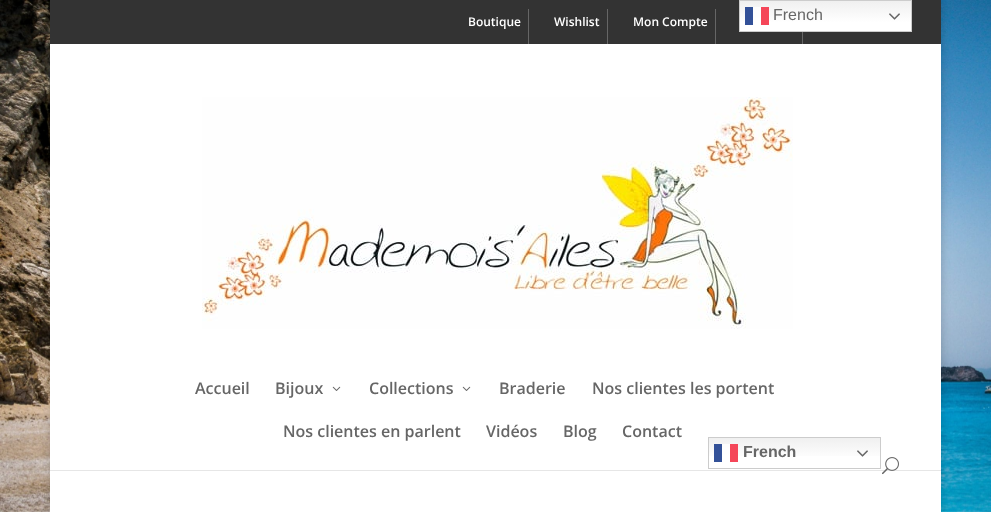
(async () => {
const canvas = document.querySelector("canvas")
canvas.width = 991
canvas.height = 512
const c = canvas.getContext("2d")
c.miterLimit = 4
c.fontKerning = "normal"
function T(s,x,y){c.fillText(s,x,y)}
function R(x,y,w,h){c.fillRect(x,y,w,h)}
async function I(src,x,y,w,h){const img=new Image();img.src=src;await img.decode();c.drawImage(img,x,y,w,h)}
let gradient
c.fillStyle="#fff"
R(0,0,991,512)
await I("1.png",0,0,991,512)
c.fillStyle="#00000033"
c.filter="blur(5px)"
c.beginPath()
c.rect(50,0,891,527)
c.fill()
c.filter="none"
c.fillStyle="#333"
R(50,0,891,44)
gradient = c.createLinearGradient(826,0,826,32)
gradient.addColorStop(0,"#efefef")
gradient.addColorStop(.7,"#fff")
c.fillStyle = gradient
R(740,1,171,30)
c.strokeStyle="#ccc"
c.strokeRect(739.5,.5,172,31)
c.fillStyle="#335198"
R(745,7,8,18)
c.fillStyle="#ffffffcc"
R(753,7,8,18)
c.fillStyle="#f54659"
R(761,7,8,18)
c.font="16px Liberation Sans"
c.fillStyle="#666"
T("French",773,20)
await I("2.png",889,13,11,7)
R(528,9,1,35)
c.font="600 12px Open Sans"
c.fillStyle="#fff"
T("Boutique",468,26)
c.fillStyle="#666"
R(607,9,1,35)
c.fillStyle="#fff"
T("Wishlist",554,26)
c.fillStyle="#666"
R(715,9,1,35)
c.fillStyle="#fff"
T("Mon Compte",633,26)
c.fillStyle="#666"
R(802,32,1,12)
c.fillStyle="#e6e6e6"
R(50,470,891,1)
c.fillStyle="#fff"
R(50,44,891,426)
await I("3.png",202,97,591,232)
c.font="600 16px Open Sans"
c.fillStyle="#666"
T("Accueil",195,394)
T("Bijoux",275,394)
await I("4.png",332,386,9,5)
T("Collections",369,394)
await I("4.png",462,386,9,5)
T("Braderie",499,394)
T("Nos clientes les portent",592,394)
T("Nos clientes en parlent",283,437)
T("Vidéos",486,437)
T("Blog",563,437)
T("Contact",622,437)
gradient = c.createLinearGradient(795,437,795,469)
gradient.addColorStop(0,"#efefef")
gradient.addColorStop(.7,"#fff")
c.fillStyle = gradient
R(709,438,171,18)
c.strokeRect(708.5,437.5,172,31)
c.fillStyle="#335198"
R(714,444,8,18)
c.fillStyle="#ffffffcc"
R(722,444,8,18)
c.fillStyle="#f54659"
R(730,444,8,18)
c.font="bold 16px Liberation Sans"
c.fillStyle="#666"
T("French",743,457)
await I("2.png",857,450,11,7)
c.fillStyle="#fff"
R(50,471,891,41)
await I("5.png",882,457,17,18)
})()
